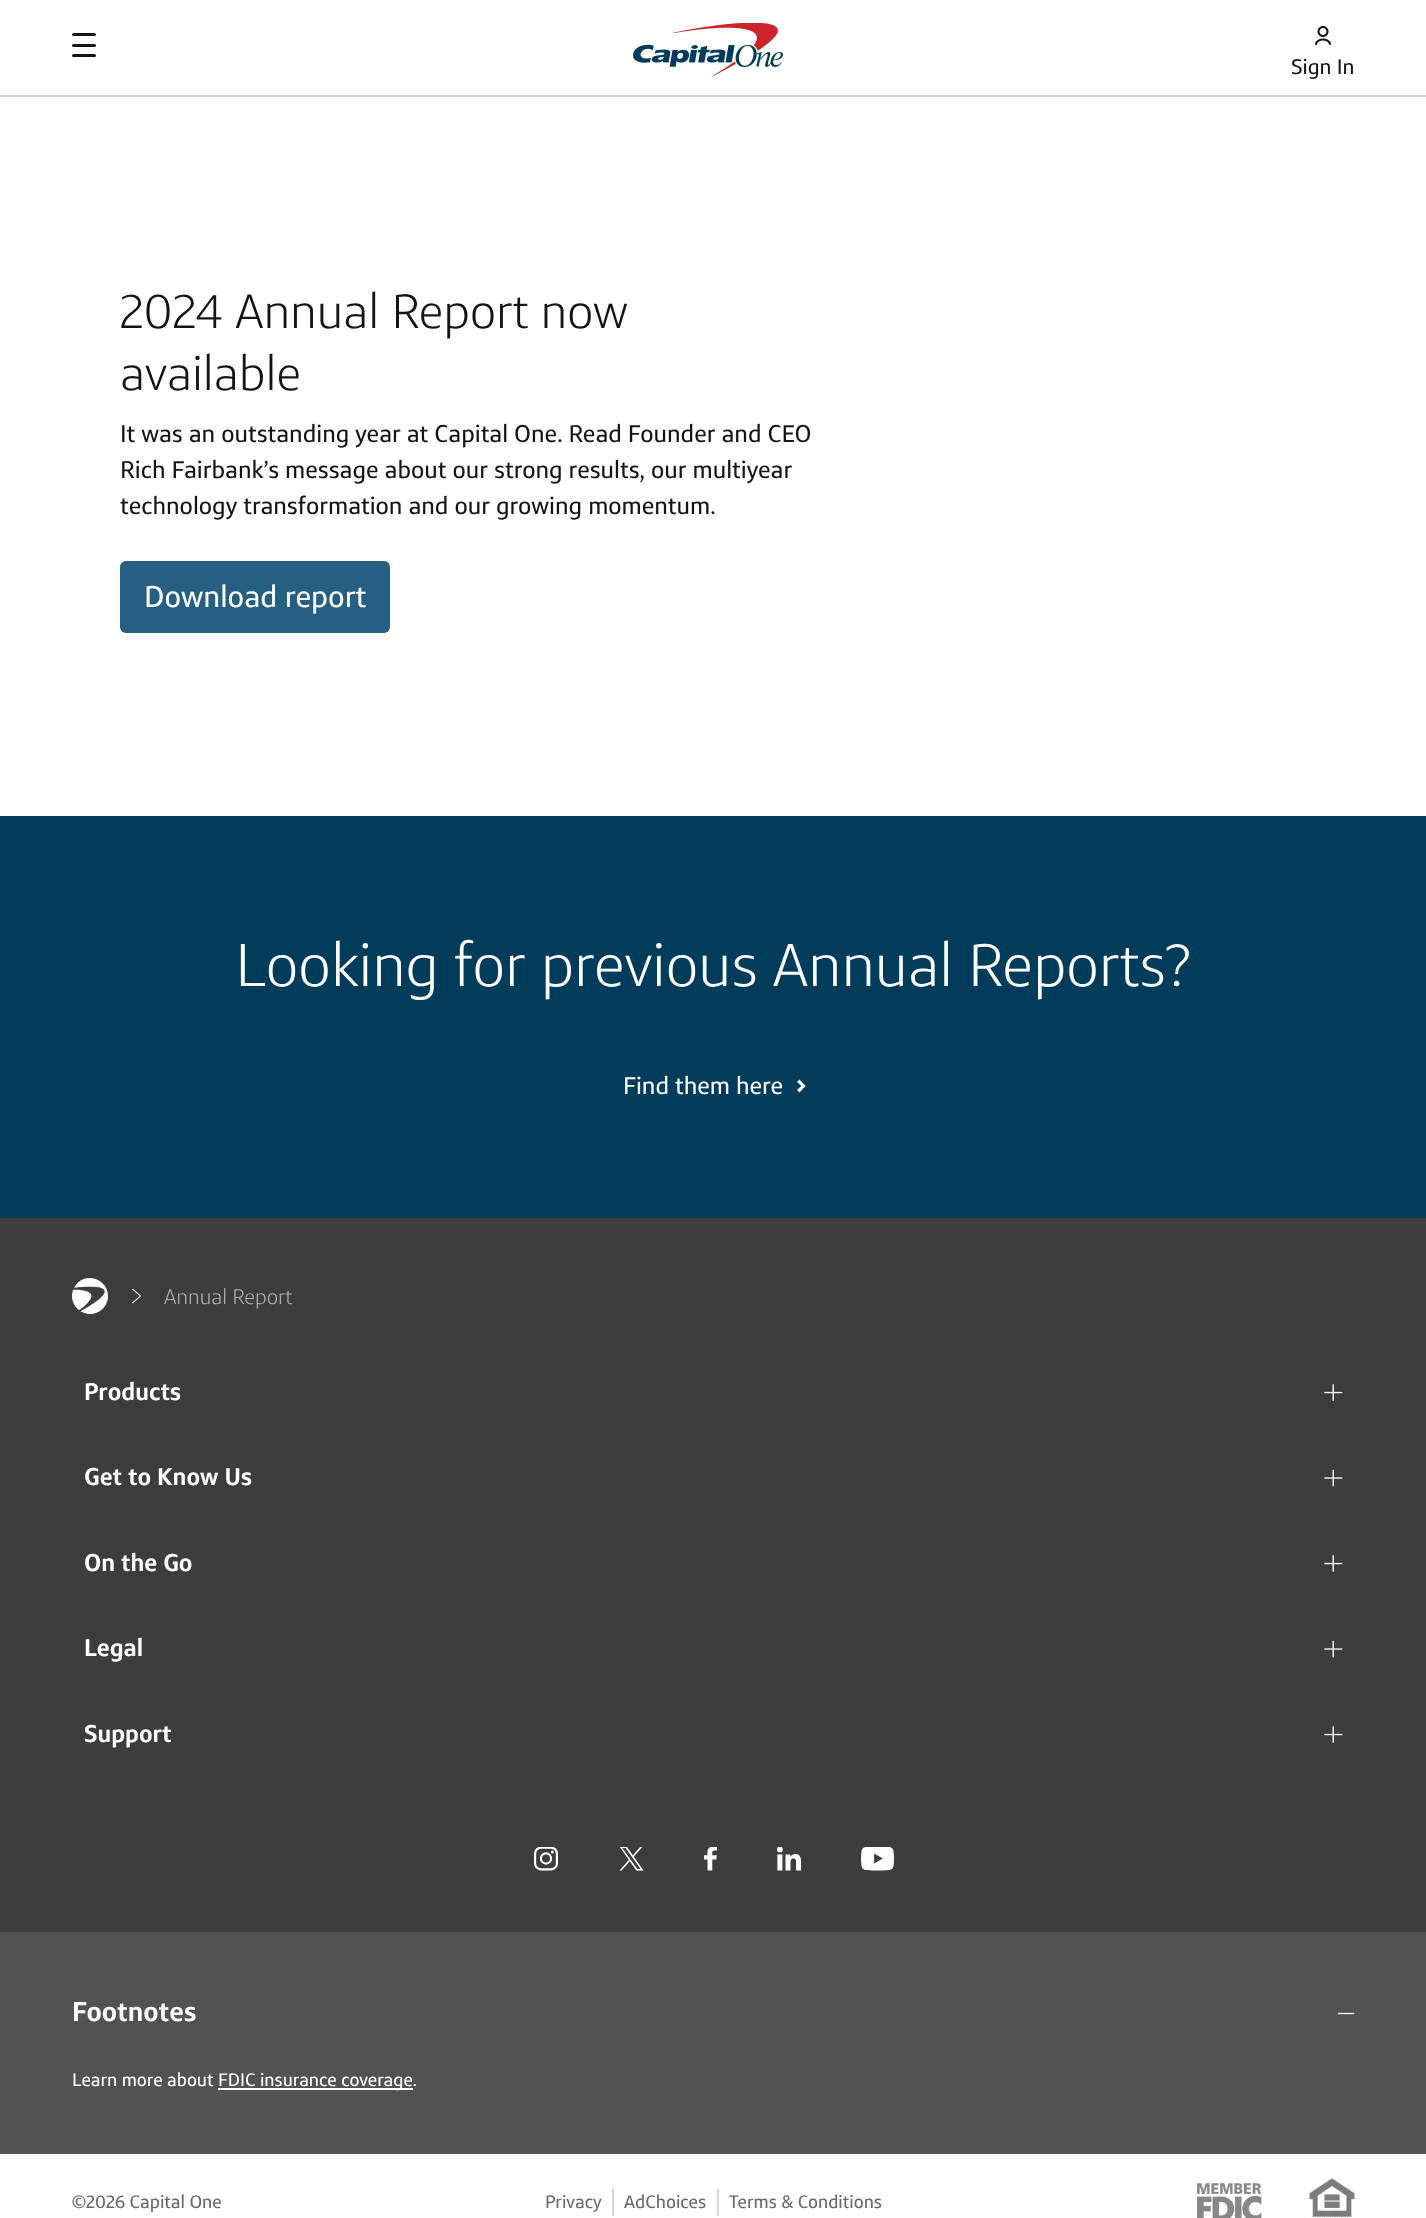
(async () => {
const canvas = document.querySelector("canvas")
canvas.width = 1426
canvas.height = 2218
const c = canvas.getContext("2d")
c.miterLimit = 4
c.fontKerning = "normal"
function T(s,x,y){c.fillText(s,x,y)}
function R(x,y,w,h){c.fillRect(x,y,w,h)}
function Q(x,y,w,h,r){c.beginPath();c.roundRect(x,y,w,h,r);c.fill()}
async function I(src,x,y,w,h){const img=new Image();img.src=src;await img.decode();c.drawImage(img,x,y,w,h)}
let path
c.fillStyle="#fff"
R(0,0,1426,2218)
c.fillStyle="#d4d4d4"
R(0,95,1426,2)
c.fillStyle="#141414"
Q(72,44,24,3,1.5)
Q(72,33,24,3,1.5)
Q(72,54,24,3,1.5)
await I("1.png",633,23,150,54)
await I("2.png",1315,26,16,19)
c.font="21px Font"
T("Sign In",1291,74)
c.font="300 48px Font"
T("2024 Annual Report now",120,328)
T("available",120,390)
c.font="24px Font"
T("It was an outstanding year at Capital One. Read Founder and CEO",120,442)
T("Rich Fairbank’s message about our strong results, our multiyear",120,478)
T("technology transformation and our growing momentum.",120,514)
c.fillStyle="#255f82"
Q(120,561,270,72,6)
c.font="30px Font"
c.fillStyle="#fff"
T("Download report",144,607)
c.fillStyle="#013d5b"
R(0,816,1426,402)
c.font="300 60px Font"
c.fillStyle="#fff"
T("Looking for previous Annual Reports?",235,986)
c.font="24px Font"
T("Find them here",623,1094)
path = new Path2D("M797 1082l2.5-2.5l6 6.5l-2 2z")
c.fill(path)
path = new Path2D("M797 1090l6.5-6l2 2l-6 6.5z")
c.fill(path)
c.fillStyle="#3d3d3d"
R(0,1218,1426,714)
await I("3.png",72,1278,36,36)
await I("4.png",132,1289,9,15)
c.font="300 21px Font"
c.fillStyle="#afb0af"
T("Annual Report",164,1304)
c.font="600 24px Font"
c.fillStyle="#fff"
T("Products",84,1400)
await I("5.png",1324,1384,19,17)
T("Get to Know Us",84,1485)
await I("6.png",1324,1469,19,18)
T("On the Go",84,1571)
await I("5.png",1324,1555,19,17)
T("Legal",84,1656)
await I("6.png",1324,1640,19,18)
T("Support",84,1742)
await I("5.png",1324,1726,19,17)
await I("7.png",534,1847,24,24)
await I("8.png",619,1847,25,24)
await I("9.png",704,1847,13,24)
await I("10.png",777,1847,24,24)
await I("11.png",861,1847,33,24)
c.fillStyle="#525252"
R(0,1932,1426,222)
c.font="600 27px Font"
c.fillStyle="#fff"
T("Footnotes",72,2021)
R(1338,2013,16,1)
path = new Path2D("M1338 2014h16v-1h-16z")
c.strokeStyle="#fff"
c.lineWidth=0.3
c.stroke(path)
c.font="18px Font"
T("Learn more about",72,2086)
R(218,2088,195,2)
T("FDIC insurance coverage.",218,2086)
c.fillStyle="#696969"
T("©2026 Capital One",72,2208)
T("Privacy",545,2208)
c.fillStyle="#d4d4d4"
R(612,2189,2,27)
c.fillStyle="#696969"
T("AdChoices",624,2208)
c.fillStyle="#d4d4d4"
R(717,2189,2,27)
c.fillStyle="#696969"
T("Terms & Conditions",729,2208)
await I("12.png",1197,2183,65,35)
await I("13.png",1309,2178,46,40)
})()
